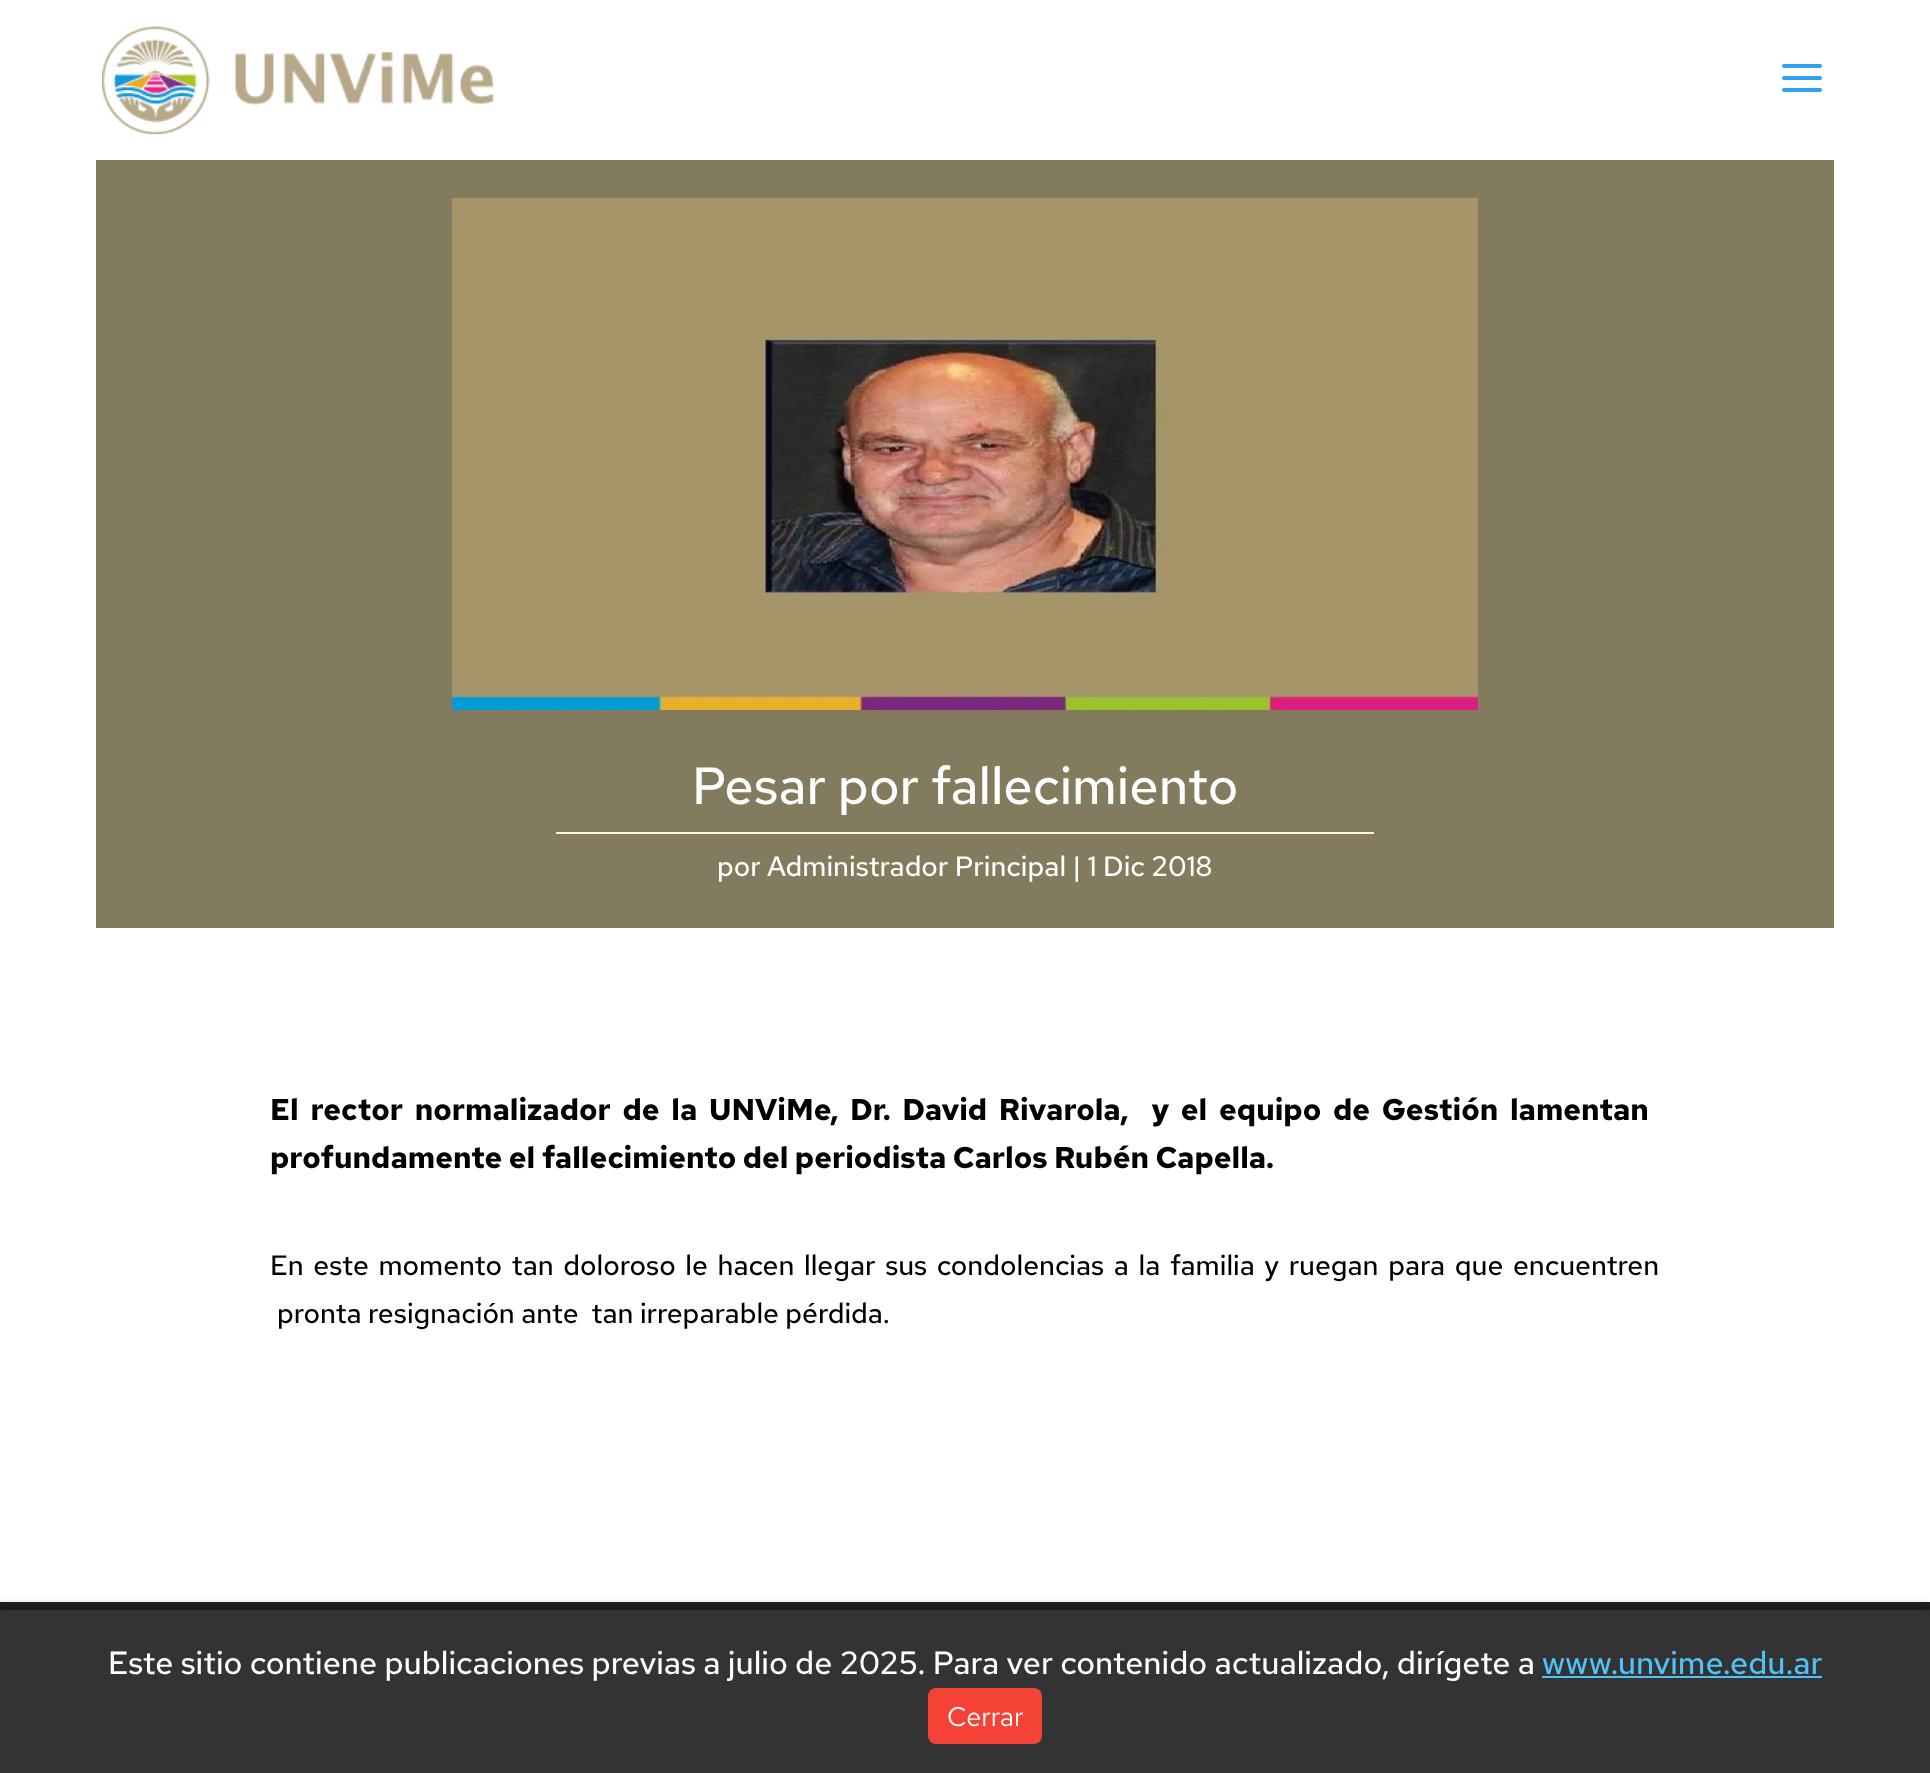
(async () => {
const canvas = document.querySelector("canvas")
canvas.width = 1930
canvas.height = 1773
const c = canvas.getContext("2d")
c.miterLimit = 4
c.fontKerning = "normal"
function T(s,x,y){c.fillText(s,x,y)}
function R(x,y,w,h){c.fillRect(x,y,w,h)}
function Q(x,y,w,h,r){c.beginPath();c.roundRect(x,y,w,h,r);c.fill()}
async function I(src,x,y,w,h){const img=new Image();img.src=src;await img.decode();c.drawImage(img,x,y,w,h)}
c.fillStyle="#fff"
R(0,0,1930,1773)
await I("1.png",102,26,392,108)
await I("2.png",1782,64,40,28)
c.fillStyle="#837b5d"
R(96,160,1738,768)
await I("3.png",452,198,1026,512)
c.font="500 52px Red Hat Text"
c.fillStyle="#fff"
T("Pesar por fallecimiento",692,804)
c.fillStyle="#fff2e1"
R(556,832,818,2)
c.font="500 28px Red Hat Text"
c.fillStyle="#fff"
T("por Administrador Principal | 1 Dic 2018",717,876)
c.wordSpacing="5.25px"
c.font="bold 30px Red Hat Text"
c.fillStyle="#000"
T("El rector normalizador de la UNViMe, Dr. David Rivarola,  y el equipo de Gestión lamentan",270,1120)
c.wordSpacing="0px"
T("profundamente el fallecimiento del periodista Carlos Rubén Capella.",270,1168)
c.wordSpacing="3.25px"
c.font="500 28px Red Hat Text"
T("En este momento tan doloroso le hacen llegar sus condolencias a la familia y ruegan para que encuentren",270,1275)
c.wordSpacing="0px"
T("pronta resignación ante  tan irreparable pérdida.",277,1323)
c.fillStyle="#222"
R(0,1602,1930,8)
c.fillStyle="#0000004d"
c.filter="blur(5px)"
c.beginPath()
c.rect(0,1606,1930,164)
c.fill()
c.filter="none"
c.fillStyle="#333"
R(0,1610,1930,163)
c.font="500 32px Red Hat Text"
c.fillStyle="#fff"
T("Este sitio contiene publicaciones previas a julio de 2025. Para ver contenido actualizado, dirígete a",108,1674)
c.fillStyle="#4fc3f7"
T("www.unvime.edu.ar",1542,1674)
R(1542,1676,280,2)
c.fillStyle="#f44336"
Q(928,1688,114,56,8)
c.font="27px Red Hat Text"
c.fillStyle="#fff"
T("Cerrar",947,1726)
})()
